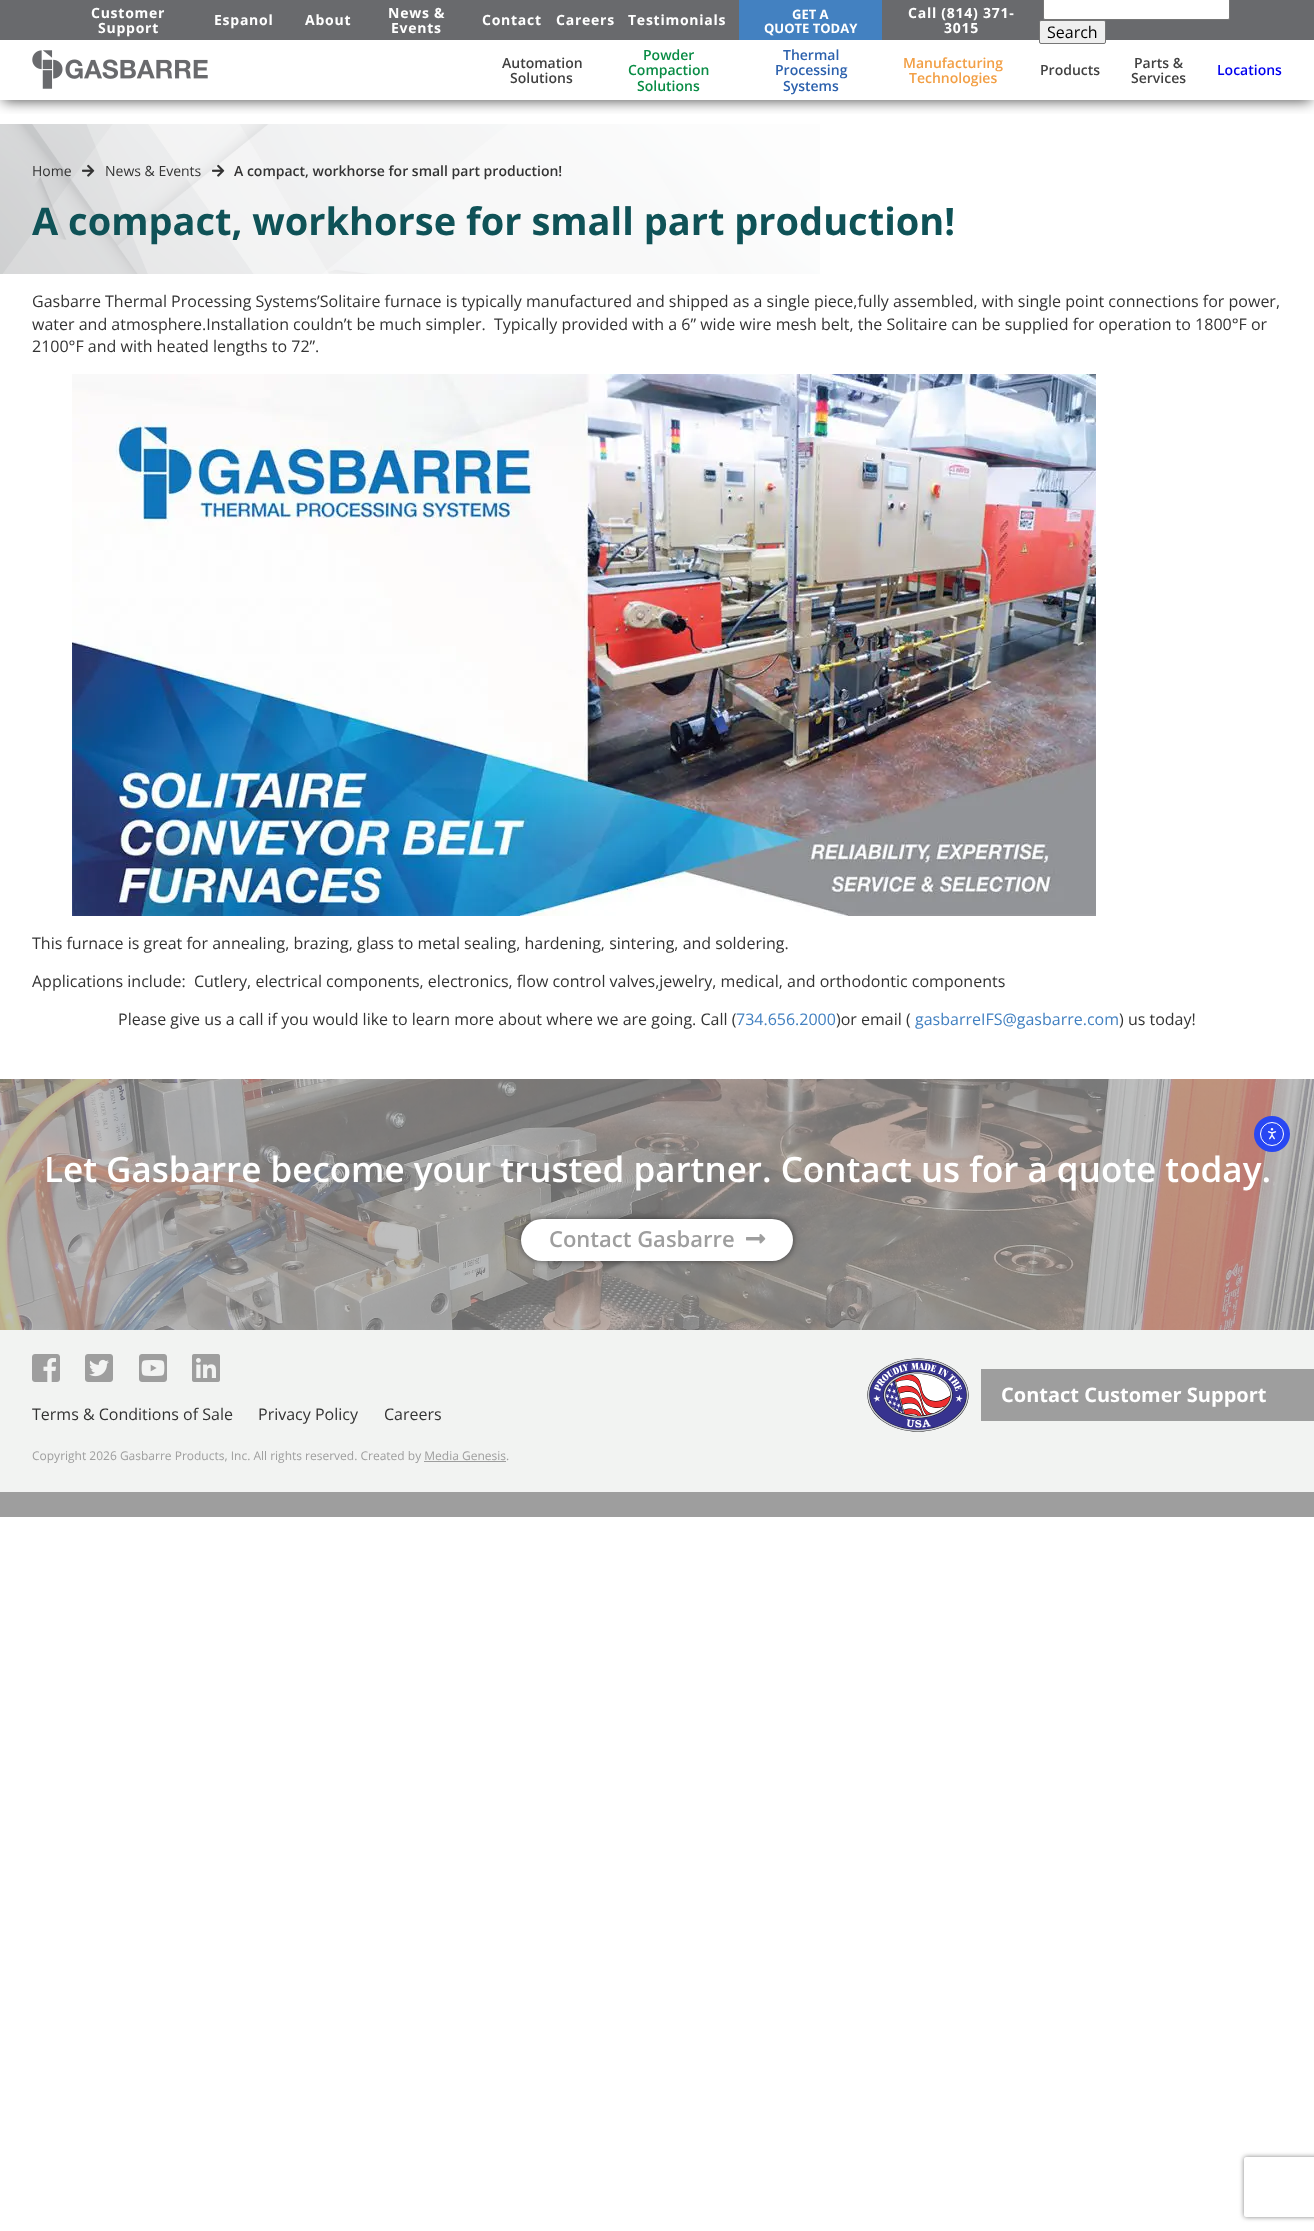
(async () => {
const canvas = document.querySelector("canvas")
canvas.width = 1314
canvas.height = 2231
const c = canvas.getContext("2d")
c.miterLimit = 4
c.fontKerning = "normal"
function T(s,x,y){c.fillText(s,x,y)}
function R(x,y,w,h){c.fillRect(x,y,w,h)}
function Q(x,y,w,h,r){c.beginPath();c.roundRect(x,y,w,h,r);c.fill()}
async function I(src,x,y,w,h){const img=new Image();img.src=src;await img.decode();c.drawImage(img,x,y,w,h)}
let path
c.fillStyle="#fff"
R(0,0,1314,2231)
c.save()
c.beginPath()
c.rect(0,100,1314,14)
c.clip()
c.fillStyle="#000000ad"
c.filter="blur(7px)"
c.beginPath()
c.rect(3,7,1308,94)
c.fill()
c.filter="none"
c.restore()
c.fillStyle="#696a6d"
R(0,0,1314,40)
c.letterSpacing="0.75px"
c.font="bold 14px Open Sans"
c.fillStyle="#fff"
T("Customer",91,18)
T("Support",98,33)
T("Espanol",214,25)
T("About",305,25)
T("News &",388,18)
T("Events",391,33)
T("Contact",482,25)
T("Careers",556,25)
T("Testimonials",628,25)
c.fillStyle="#4381c1"
R(739,0,143,40)
c.letterSpacing="0px"
c.font="bold 13px Open Sans"
c.fillStyle="#fff"
T("GET A",792,19)
T("QUOTE TODAY",764,33)
c.letterSpacing="0.75px"
c.font="bold 14px Open Sans"
T("Call (814) 371-",908,18)
T("3015",944,33)
c.beginPath()
c.roundRect(1043.5,-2.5,186,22,1.5)
c.fill()
c.strokeStyle="#767676"
c.stroke()
c.fillStyle="#efefef"
c.beginPath()
c.roundRect(1039.5,20.5,66,23,1.5)
c.fill()
c.stroke()
c.letterSpacing="0px"
c.font="16px Open Sans"
c.fillStyle="#000"
T("Search",1047,38)
await I("1.png",32,50,176,39)
c.font="600 14px Open Sans"
c.fillStyle="#414141"
T("Automation",502,68)
T("Solutions",510,83)
c.fillStyle="#098c45"
T("Powder",643,60)
T("Compaction",628,75)
T("Solutions",637,91)
c.fillStyle="#2c61ad"
T("Thermal",783,60)
T("Processing",775,75)
T("Systems",783,91)
c.fillStyle="#f29f45"
T("Manufacturing",903,68)
T("Technologies",909,83)
c.fillStyle="#414141"
T("Products",1040,75)
T("Parts &",1134,68)
T("Services",1131,83)
c.fillStyle="#00e"
T("Locations",1217,75)
await I("2.png",0,124,820,150)
c.font="14px Open Sans"
c.fillStyle="#333"
T("Home",32,176)
await I("3.png",82,164,13,13)
T("News & Events",105,176)
await I("4.png",212,164,13,13)
c.font="600 14px Open Sans"
T("A compact, workhorse for small part production!",234,176)
c.font="bold 38px Open Sans"
c.fillStyle="#0f5257"
T("A compact, workhorse for small part production!",32,235)
c.font="16px Open Sans"
c.fillStyle="#333"
T("Gasbarre Thermal Processing Systems’Solitaire furnace is typically manufactured and shipped as a single piece,fully assembled, with single point connections for power,",32,307)
T("water and atmosphere.Installation couldn’t be much simpler.  Typically provided with a 6” wide wire mesh belt, the Solitaire can be supplied for operation to 1800°F or",32,330)
T("2100°F and with heated lengths to 72”.",32,352)
await I("5.png",72,374,1024,542)
T("This furnace is great for annealing, brazing, glass to metal sealing, hardening, sintering, and soldering.",32,949)
T("Applications include:  Cutlery, electrical components, electronics, flow control valves,jewelry, medical, and orthodontic components",32,987)
T("Please give us a call if you would like to learn more about where we are going. Call (",118,1025)
c.fillStyle="#4381c1"
T("734.656.2000",736,1025)
c.fillStyle="#333"
T(")or email (",836,1025)
c.fillStyle="#4381c1"
T("gasbarreIFS@gasbarre.com",915,1025)
c.fillStyle="#333"
T(") us today!",1119,1025)
await I("7.png",0,1079,1314,251)
c.fillStyle="#2847f3"
c.beginPath()
c.arc(1272,1134,18,0,7)
c.fill()
c.beginPath()
c.arc(1272,1134,11.5,0,7)
c.strokeStyle="#fff"
c.stroke()
await I("6.png",1267,1128,10,12)
c.fillStyle="#f2f3f2"
R(0,1330,1314,162)
c.fillStyle="#9e9e9e"
R(0,1492,1314,25)
c.font="600 35px Open Sans"
c.fillStyle="#fff"
T("Let Gasbarre become your trusted partner. Contact us for a quote today.",44,1182)
c.fillStyle="#0000008c"
c.filter="blur(3px)"
c.beginPath()
c.roundRect(521,1219,272,42,21)
c.fill()
c.filter="none"
c.fillStyle="#fff"
Q(521,1219,272,42,21)
c.font="600 22px Open Sans"
c.fillStyle="#9e9e9e"
T("Contact Gasbarre",549,1247)
await I("8.png",746,1234,20,10)
await I("9.png",867,1358,102,74)
R(981,1369,333,52)
c.font="bold 20px Open Sans"
c.fillStyle="#fff"
T("Contact Customer Support",1001,1402)
await I("10.png",32,1354,28,28)
await I("11.png",85,1354,28,28)
await I("12.png",139,1354,28,28)
await I("13.png",192,1354,28,28)
c.font="16px Open Sans"
c.fillStyle="#333"
T("Terms & Conditions of Sale",32,1420)
T("Privacy Policy",258,1420)
T("Careers",384,1420)
c.font="12px Open Sans"
c.fillStyle="#9e9e9e"
T("Copyright 2026 Gasbarre Products, Inc. All rights reserved. Created by Media Genesis.",32,1460)
R(424,1461,82,1)
c.save()
path = new Path2D("M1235 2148h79v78h-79zm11 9h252c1 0 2 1 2 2v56c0 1-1 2-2 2h-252c-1 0-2-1-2-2v-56c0-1 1-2 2-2z")
c.clip(path,"evenodd")
c.fillStyle="#808080"
c.filter="blur(2.5px)"
c.beginPath()
c.roundRect(1244,2157,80,60,2)
c.fill()
c.filter="none"
c.restore()
})()
